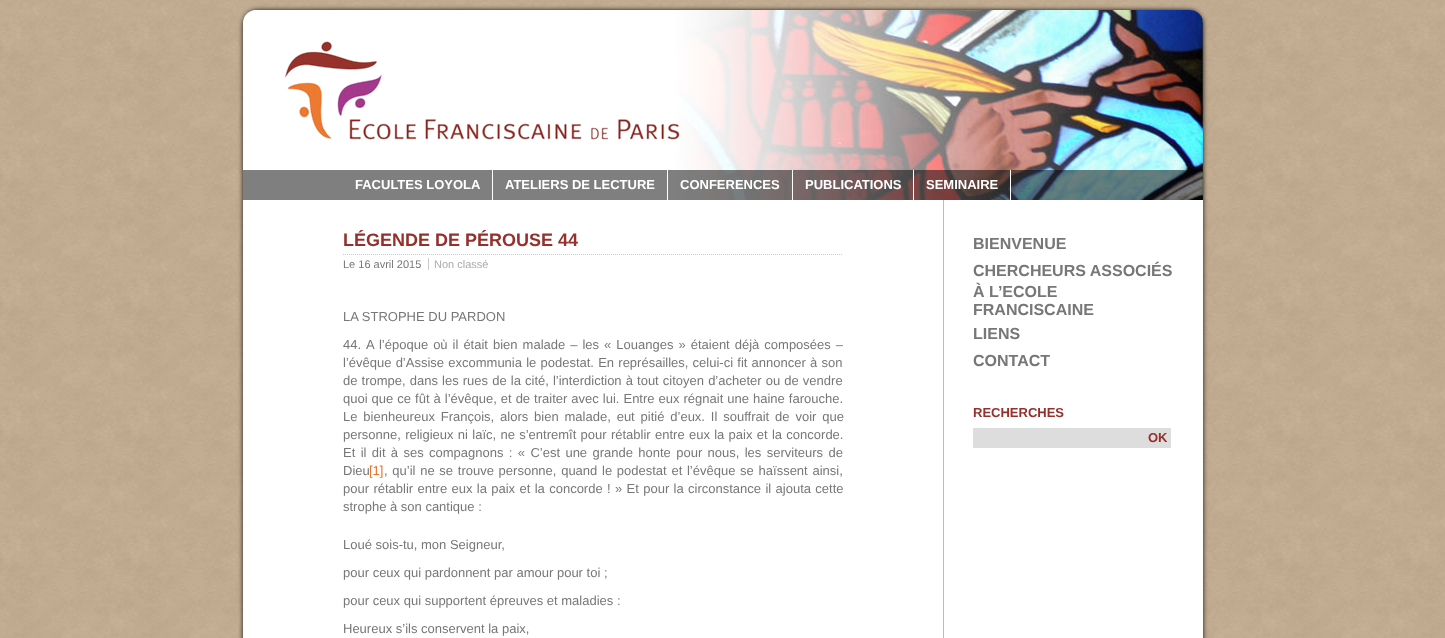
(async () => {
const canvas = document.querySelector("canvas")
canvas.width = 1445
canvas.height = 638
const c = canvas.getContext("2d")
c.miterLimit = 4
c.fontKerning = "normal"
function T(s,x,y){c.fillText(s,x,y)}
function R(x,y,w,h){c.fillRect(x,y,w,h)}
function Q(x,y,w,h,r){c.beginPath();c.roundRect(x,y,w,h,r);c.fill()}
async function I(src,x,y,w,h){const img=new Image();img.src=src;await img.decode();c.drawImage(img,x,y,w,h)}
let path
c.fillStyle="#fff"
R(0,0,1445,638)
await I("1.png",0,0,1445,638)
c.fillStyle="#111"
c.filter="blur(2.5px)"
c.beginPath()
c.roundRect(243,10,960,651,15)
c.fill()
c.filter="none"
c.fillStyle="#fff"
Q(243,10,960,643,15)
await I("2.png",243,10,960,190)
await I("3.png",284,41,396,99)
c.fillStyle="#00000080"
R(243,170,960,30)
c.fillStyle="#fff"
R(492,170,1,30)
c.font="bold 13px Liberation Sans"
T("FACULTES LOYOLA",355,189)
R(667,170,1,30)
T("ATELIERS DE LECTURE",505,189)
R(792,170,1,30)
T("CONFERENCES",680,189)
R(913,170,1,30)
T("PUBLICATIONS",805,189)
R(1010,170,1,30)
T("SEMINAIRE",926,189)
c.fillStyle="#bbb"
R(943,200,1,438)
path = new Path2D("M343 254.5h500")
c.strokeStyle="#ccc"
c.setLineDash([1,1])
c.stroke(path)
c.font="bold 18px Liberation Sans"
c.fillStyle="#96302c"
T("LÉGENDE DE PÉROUSE 44",343,246)
c.font="11px Liberation Sans"
c.fillStyle="#777"
T("Le 16 avril 2015",343,268)
c.fillStyle="#aaa"
T("Non classé",434,268)
c.fillStyle="#ccc"
R(428,258,1,12)
c.font="13px Liberation Sans"
c.fillStyle="#777"
T("LA STROPHE DU PARDON",343,321)
T("44.",343,349)
c.wordSpacing="1.4px"
T("A l’époque où il était bien malade – les « Louanges » étaient déjà composées –",366,349)
c.wordSpacing="0.6px"
T("l’évêque d’Assise excommunia le podestat. En représailles, celui-ci fit annoncer à son",343,367)
c.wordSpacing="0.5px"
T("de trompe, dans les rues de la cité, l’interdiction à tout citoyen d’acheter ou de vendre",343,385)
c.wordSpacing="0.4px"
T("quoi que ce fût à l’évêque, et de traiter avec lui. Entre eux régnait une haine farouche.",343,403)
c.wordSpacing="2.25px"
T("Le bienheureux François, alors bien malade, eut pitié d’eux. Il souffrait de voir que",343,421)
c.wordSpacing="0.7px"
T("personne, religieux ni laïc, ne s’entremît pour rétablir entre eux la paix et la concorde.",343,439)
c.wordSpacing="1.75px"
T("Et il dit à ses compagnons : « C’est une grande honte pour nous, les serviteurs de",343,457)
c.wordSpacing="0px"
T("Dieu",343,475)
c.fillStyle="#eb702a"
T("[1]",369,475)
c.wordSpacing="1.1px"
c.fillStyle="#777"
T(", qu’il ne se trouve personne, quand le podestat et l’évêque se haïssent ainsi,",384,475)
c.wordSpacing="0.75px"
T("pour rétablir entre eux la paix et la concorde ! » Et pour la circonstance il ajouta cette",343,493)
c.wordSpacing="0px"
T("strophe à son cantique :",343,511)
T("Loué sois-tu, mon Seigneur,",343,549)
T("pour ceux qui pardonnent par amour pour toi ;",343,577)
T("pour ceux qui supportent épreuves et maladies :",343,605)
T("Heureux s’ils conservent la paix,",343,633)
c.font="bold 16px Liberation Sans"
T("BIENVENUE",973,249)
T("CHERCHEURS ASSOCIÉS",973,276)
T("À L’ECOLE",973,297)
T("FRANCISCAINE",973,315)
T("LIENS",973,339)
T("CONTACT",973,366)
c.font="bold 13px Liberation Sans"
c.fillStyle="#96302c"
T("RECHERCHES",973,417)
c.fillStyle="#ddd"
R(973,428,198,20)
c.fillStyle="#96302c"
T("OK",1148,442)
})()
